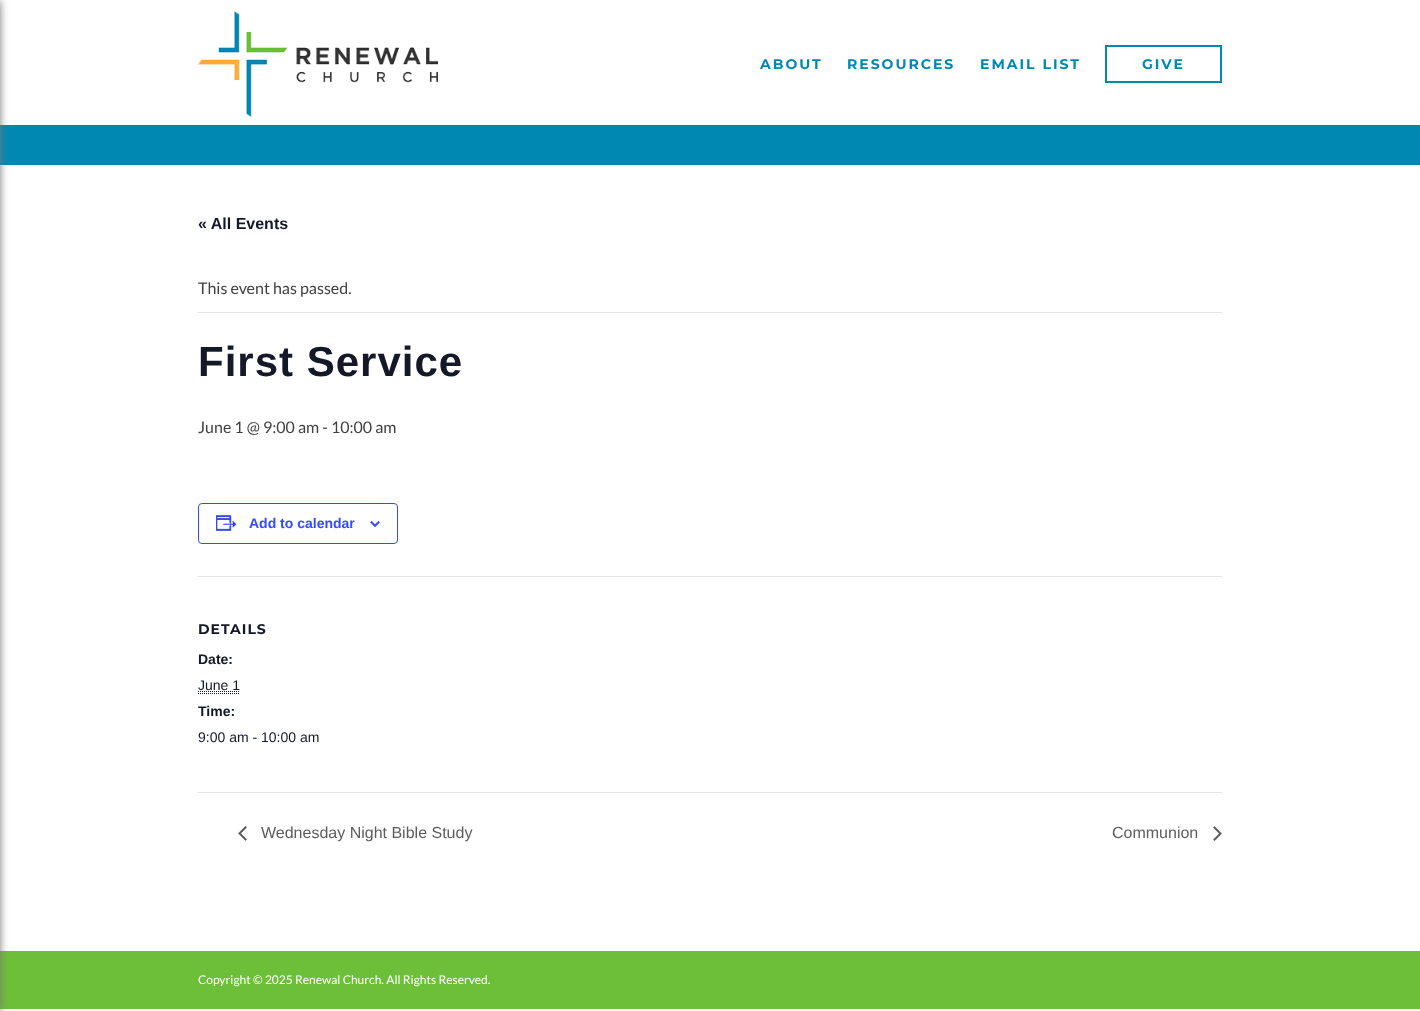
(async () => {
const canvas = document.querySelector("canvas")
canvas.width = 1420
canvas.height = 1011
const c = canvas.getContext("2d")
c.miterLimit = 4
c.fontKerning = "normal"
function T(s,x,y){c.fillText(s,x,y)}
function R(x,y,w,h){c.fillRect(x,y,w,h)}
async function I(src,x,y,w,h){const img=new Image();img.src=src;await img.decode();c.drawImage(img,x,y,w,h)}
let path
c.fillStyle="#fff"
R(0,0,1420,1011)
c.fillStyle="#0088b2"
R(0,125,1420,40)
c.fillStyle="#6dbf39"
R(0,951,1420,58)
c.fillStyle="#787878"
c.filter="blur(4px)"
c.beginPath()
c.rect(-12,1,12,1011)
c.fill()
c.filter="none"
await I("1.png",198,11,240,106)
c.letterSpacing="2px"
c.font="bold 14px Montserrat"
c.fillStyle="#0088b2"
T("ABOUT",760,69)
T("RESOURCES",847,69)
T("EMAIL LIST",980,69)
c.strokeStyle="#0088b2"
c.lineWidth=2
c.strokeRect(1106,46,115,36)
T("GIVE",1142,69)
c.letterSpacing="0px"
c.font="bold 16px Liberation Sans"
c.fillStyle="#141827"
T("« All Events",198,229)
c.fillStyle="#e4e4e4"
R(198,312,1024,1)
c.font="16px Lato"
c.fillStyle="#404040"
T("This event has passed.",198,294)
c.letterSpacing="1px"
c.font="bold 42px Liberation Sans"
c.fillStyle="#141827"
T("First Service",198,376)
c.letterSpacing="0px"
c.font="16px Lato"
c.fillStyle="#404040"
T("June 1 @ 9:00 am - 10:00 am",198,433)
c.beginPath()
c.roundRect(198.5,503.5,199,40,3.5)
c.strokeStyle="#334aff"
c.lineWidth=1
c.stroke()
await I("2.png",216,515,21,16)
c.font="bold 14px Liberation Sans"
c.fillStyle="#334aff"
T("Add to calendar",249,528)
await I("3.png",370,521,10,6)
c.fillStyle="#e4e4e4"
R(198,576,1024,1)
c.letterSpacing="1px"
c.font="bold 14px Montserrat"
c.fillStyle="#141827"
T("DETAILS",198,634)
c.letterSpacing="0px"
c.font="bold 14px Liberation Sans"
T("Date:",198,664)
c.font="14px Liberation Sans"
T("June 1",198,690)
path = new Path2D("M198 693.5h42m-42-2h42")
c.strokeStyle="#141827"
c.setLineDash([1,1])
c.stroke(path)
c.font="bold 14px Liberation Sans"
T("Time:",198,716)
c.font="14px Liberation Sans"
T("9:00 am - 10:00 am",198,742)
c.fillStyle="#e4e4e4"
R(198,792,1024,1)
await I("4.png",238,826,9,15)
c.font="16px Liberation Sans"
c.fillStyle="#5d5d5d"
T("Wednesday Night Bible Study",261,838)
T("Communion",1112,838)
await I("5.png",1213,826,9,15)
c.font="12px Lato"
c.fillStyle="#fff"
T("Copyright © 2025 Renewal Church. All Rights Reserved.",198,984)
})()
